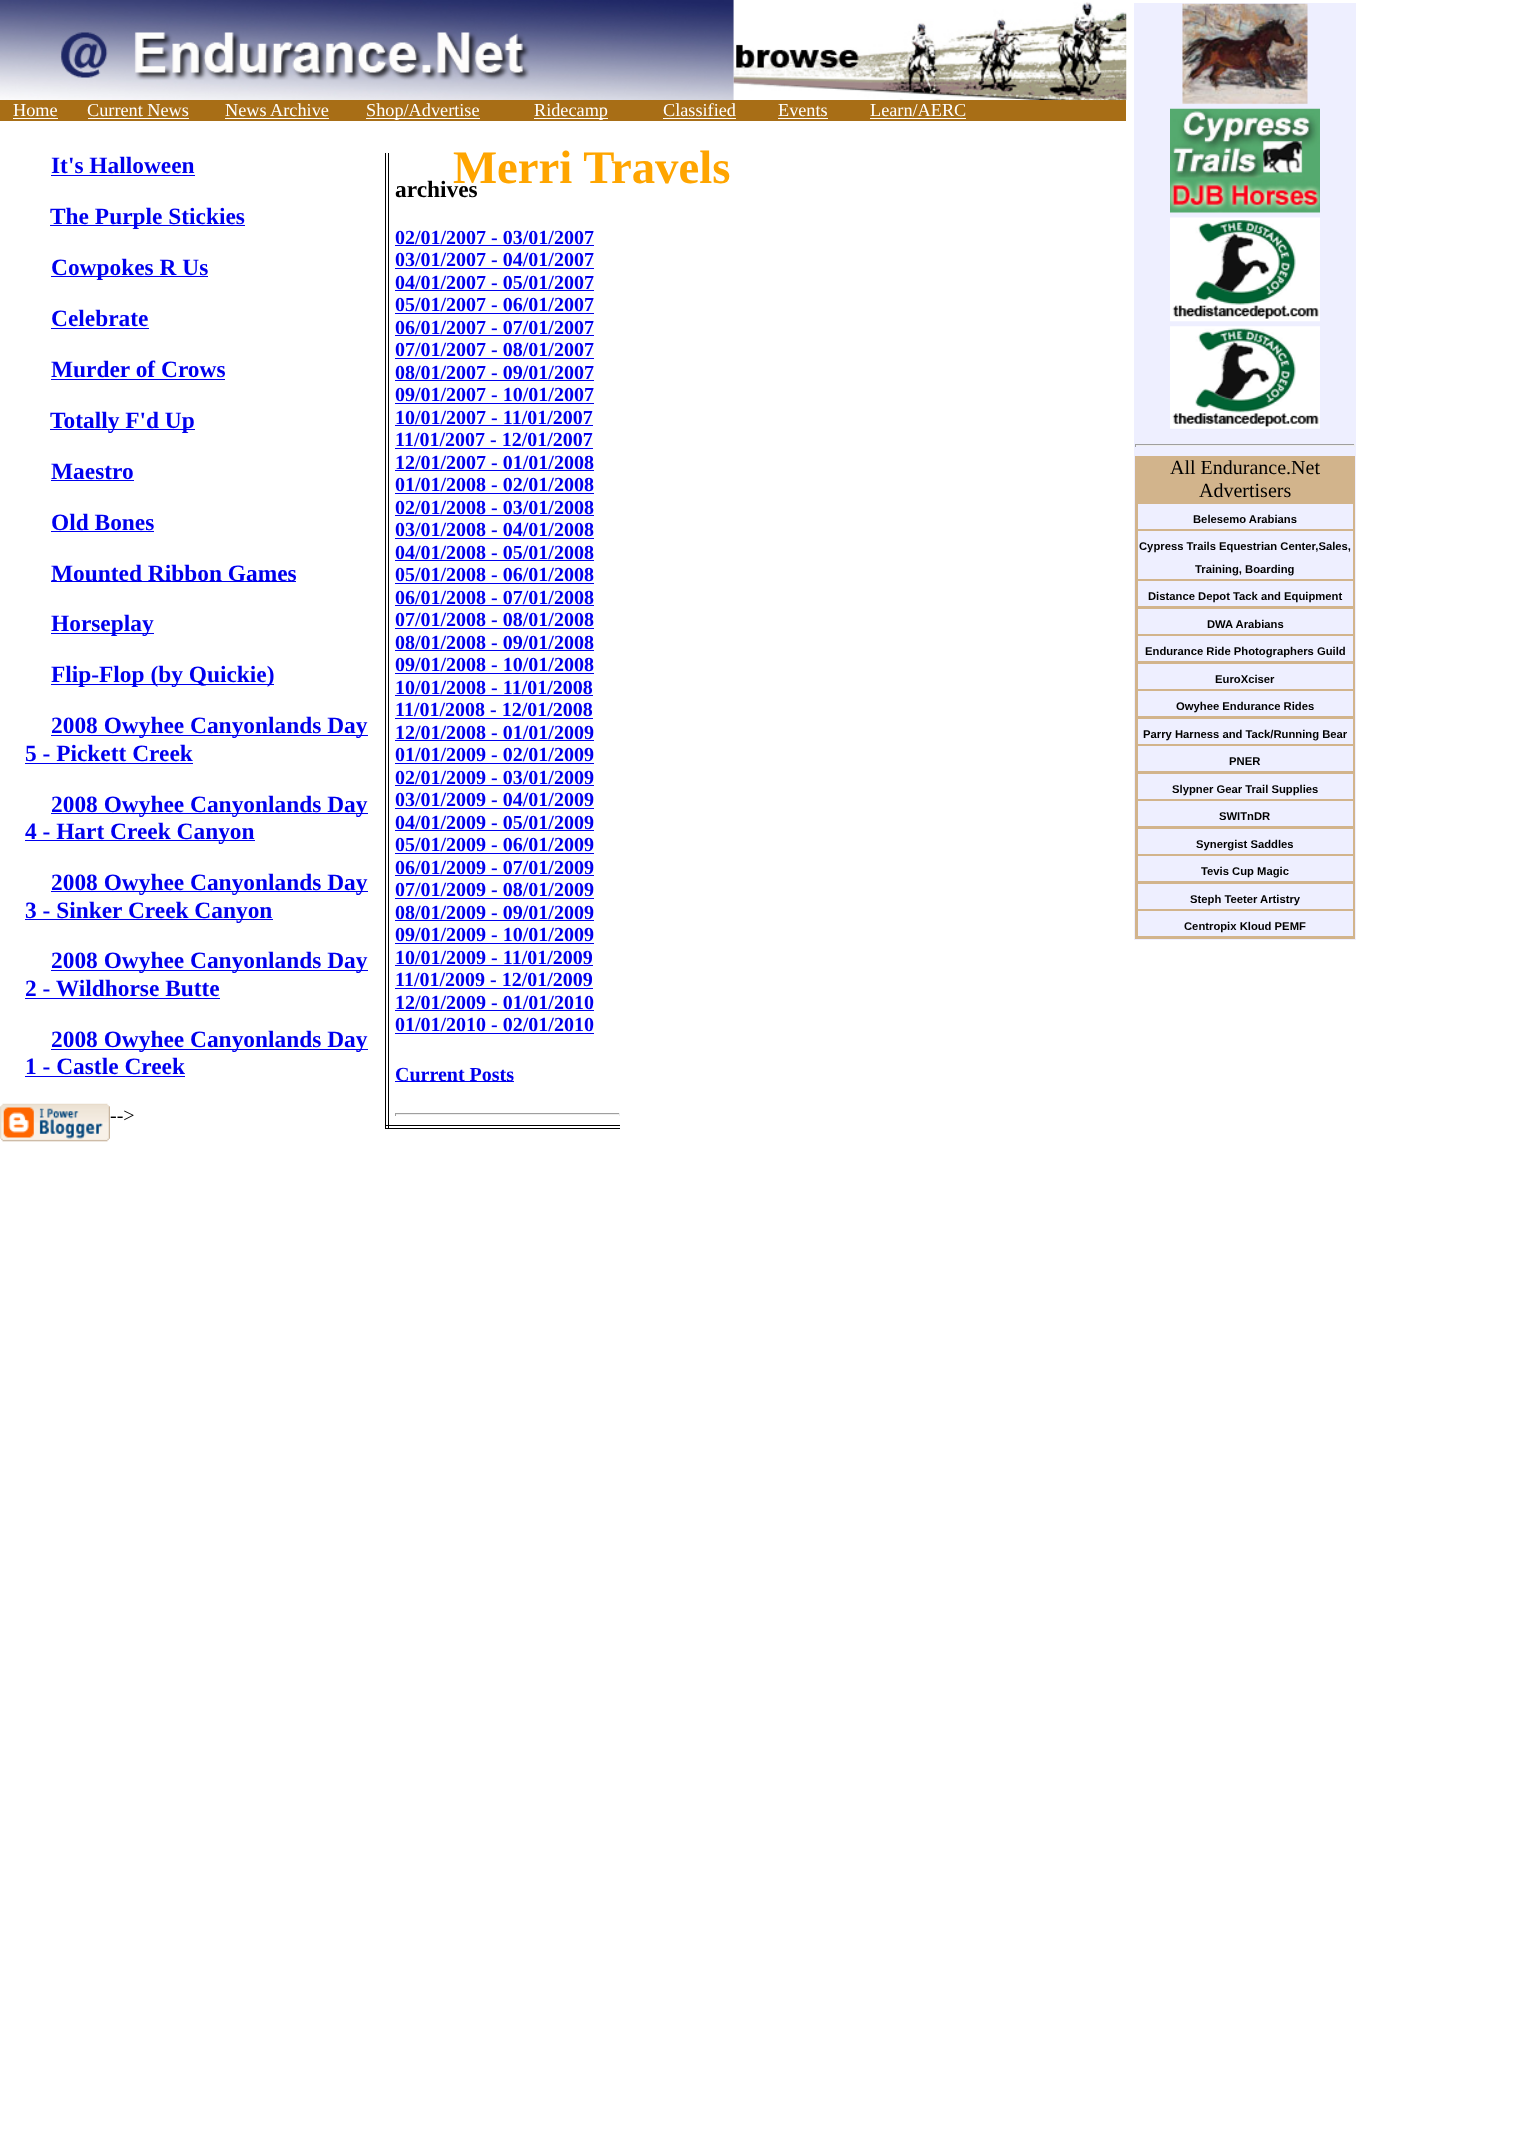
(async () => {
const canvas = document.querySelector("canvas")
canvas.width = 1535
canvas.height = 2144
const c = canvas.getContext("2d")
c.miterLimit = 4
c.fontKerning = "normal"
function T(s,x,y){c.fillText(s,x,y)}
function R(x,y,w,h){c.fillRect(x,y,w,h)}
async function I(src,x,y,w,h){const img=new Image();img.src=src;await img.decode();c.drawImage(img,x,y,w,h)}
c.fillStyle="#fff"
R(0,0,1535,2144)
await I("1.png",0,0,734,100)
await I("2.png",733,0,394,100)
c.fillStyle="#a86e16"
R(0,100,1126,21)
c.font="18.25px Liberation Serif"
c.fillStyle="#fff"
T("Home",13,116)
R(13,118,45,1)
T("Current News",87,116)
R(88,118,101,1)
T("News Archive",225,116)
R(225,118,104,1)
R(366,118,114,1)
T("Shop/Advertise",366,116)
R(534,118,74,1)
T("Ridecamp",534,116)
T("Classified",663,116)
R(663,118,73,1)
T("Events",778,116)
R(778,118,50,1)
T("Learn/AERC",870,116)
R(870,118,96,1)
c.font="bold 46.75px Liberation Serif"
c.fillStyle="#ffa500"
T("Merri Travels",453,183)
c.font="bold 23.4px Liberation Serif"
c.fillStyle="#00e"
T("It's Halloween",51,173)
R(51,175,144,1)
R(50,225,195,1)
T("The Purple Stickies",50,224)
c.fillStyle="#000"
R(385,1125,235,1)
R(385,1128,235,1)
R(385,153,1,976)
R(388,153,1,976)
T("archives",395,197)
c.font="bold 20px Liberation Serif"
c.fillStyle="#00e"
T("02/01/2007 - 03/01/2007",395,244)
R(395,245,199,1)
T("03/01/2007 - 04/01/2007",395,266)
R(395,268,199,1)
T("04/01/2007 - 05/01/2007",395,289)
R(395,290,199,1)
T("05/01/2007 - 06/01/2007",395,311)
R(395,313,199,1)
T("06/01/2007 - 07/01/2007",395,334)
R(395,335,199,1)
T("07/01/2007 - 08/01/2007",395,356)
R(395,358,199,1)
T("08/01/2007 - 09/01/2007",395,379)
R(395,380,199,1)
T("09/01/2007 - 10/01/2007",395,401)
R(395,403,199,1)
T("10/01/2007 - 11/01/2007",395,424)
R(395,425,198,1)
T("11/01/2007 - 12/01/2007",395,446)
R(395,448,198,1)
T("12/01/2007 - 01/01/2008",395,469)
R(395,470,199,1)
T("01/01/2008 - 02/01/2008",395,491)
R(395,493,199,1)
T("02/01/2008 - 03/01/2008",395,514)
R(395,515,199,1)
T("03/01/2008 - 04/01/2008",395,536)
R(395,538,199,1)
T("04/01/2008 - 05/01/2008",395,559)
R(395,560,199,1)
T("05/01/2008 - 06/01/2008",395,581)
R(395,583,199,1)
T("06/01/2008 - 07/01/2008",395,604)
R(395,605,199,1)
T("07/01/2008 - 08/01/2008",395,626)
R(395,628,199,1)
T("08/01/2008 - 09/01/2008",395,649)
R(395,650,199,1)
T("09/01/2008 - 10/01/2008",395,671)
R(395,673,199,1)
T("10/01/2008 - 11/01/2008",395,694)
R(395,695,198,1)
T("11/01/2008 - 12/01/2008",395,716)
R(395,718,198,1)
T("12/01/2008 - 01/01/2009",395,739)
R(395,740,199,1)
T("01/01/2009 - 02/01/2009",395,761)
R(395,763,199,1)
T("02/01/2009 - 03/01/2009",395,784)
R(395,785,199,1)
T("03/01/2009 - 04/01/2009",395,806)
R(395,808,199,1)
T("04/01/2009 - 05/01/2009",395,829)
R(395,830,199,1)
T("05/01/2009 - 06/01/2009",395,851)
R(395,853,199,1)
T("06/01/2009 - 07/01/2009",395,874)
R(395,875,199,1)
T("07/01/2009 - 08/01/2009",395,896)
R(395,898,199,1)
T("08/01/2009 - 09/01/2009",395,919)
R(395,920,199,1)
T("09/01/2009 - 10/01/2009",395,941)
R(395,943,199,1)
T("10/01/2009 - 11/01/2009",395,964)
R(395,965,198,1)
T("11/01/2009 - 12/01/2009",395,986)
R(395,988,198,1)
T("12/01/2009 - 01/01/2010",395,1009)
R(395,1010,199,1)
T("01/01/2010 - 02/01/2010",395,1031)
R(395,1033,199,1)
R(395,1081,119,1)
T("Current Posts",395,1081)
c.fillStyle="#9f9f9f"
R(395,1113,225,1)
c.fillStyle="#eee"
R(619,1113,1,3)
R(395,1114,225,1)
c.fillStyle="#9f9f9f"
R(395,1113,1,3)
c.fillStyle="#00e"
R(51,276,157,1)
c.font="bold 23.4px Liberation Serif"
T("Cowpokes R Us",51,275)
T("Celebrate",51,326)
R(51,328,98,1)
T("Murder of Crows",51,377)
R(51,379,174,1)
R(50,429,145,1)
T("Totally F'd Up",50,428)
T("Maestro",51,479)
R(51,480,83,1)
T("Old Bones",51,530)
R(51,531,103,1)
R(51,581,245,1)
T("Mounted Ribbon Games",51,581)
R(51,633,103,1)
T("Horseplay",51,631)
R(51,684,223,1)
T("Flip-Flop (by Quickie)",51,682)
R(51,735,317,1)
T("2008 Owyhee Canyonlands Day",51,733)
T("5 - Pickett Creek",25,761)
R(25,763,168,1)
R(51,813,317,1)
T("2008 Owyhee Canyonlands Day",51,812)
R(25,840,230,1)
T("4 - Hart Creek Canyon",25,839)
R(51,891,317,1)
T("2008 Owyhee Canyonlands Day",51,890)
R(25,919,248,1)
T("3 - Sinker Creek Canyon",25,918)
R(51,970,317,1)
T("2008 Owyhee Canyonlands Day",51,968)
T("2 - Wildhorse Butte",25,996)
R(25,998,195,1)
R(51,1049,317,1)
T("2008 Owyhee Canyonlands Day",51,1047)
T("1 - Castle Creek",25,1074)
R(25,1076,160,1)
await I("3.png",0,1103,110,39)
c.font="20px Liberation Serif"
c.fillStyle="#000"
T("-->",110,1122)
c.fillStyle="#eeefff"
R(1134,3,222,937)
await I("4.png",1182,3,126,101)
await I("5.png",1170,108,150,105)
await I("6.png",1170,217,150,105)
await I("7.png",1170,326,150,103)
c.fillStyle="#9f9f9f"
R(1135,444,220,1)
c.fillStyle="#eee"
R(1354,444,1,3)
R(1135,445,220,1)
c.fillStyle="#9f9f9f"
R(1135,444,1,3)
c.fillStyle="#d2b48c"
R(1135,456,220,483)
c.fillStyle="#000"
T("All Endurance.Net",1170,474)
T("Advertisers",1199,497)
c.fillStyle="#eeefff"
R(1138,504,215,25)
c.font="bold 11.25px Liberation Sans"
c.fillStyle="#000"
T("Belesemo Arabians",1193,523)
c.fillStyle="#eeefff"
R(1138,531,215,48)
c.fillStyle="#000"
T("Cypress Trails Equestrian Center,Sales,",1139,550)
T("Training, Boarding",1195,573)
c.fillStyle="#eeefff"
R(1138,581,215,25)
c.fillStyle="#000"
T("Distance Depot Tack and Equipment",1148,600)
c.fillStyle="#eeefff"
R(1138,609,215,25)
c.fillStyle="#000"
T("DWA Arabians",1207,628)
c.fillStyle="#eeefff"
R(1138,636,215,25)
c.fillStyle="#000"
T("Endurance Ride Photographers Guild",1145,655)
c.fillStyle="#eeefff"
R(1138,664,215,25)
c.fillStyle="#000"
T("EuroXciser",1215,683)
c.fillStyle="#eeefff"
R(1138,691,215,25)
c.fillStyle="#000"
T("Owyhee Endurance Rides",1176,710)
c.fillStyle="#eeefff"
R(1138,719,215,25)
c.fillStyle="#000"
T("Parry Harness and Tack/Running Bear",1143,738)
c.fillStyle="#eeefff"
R(1138,746,215,25)
c.fillStyle="#000"
T("PNER",1229,765)
c.fillStyle="#eeefff"
R(1138,774,215,25)
c.fillStyle="#000"
T("Slypner Gear Trail Supplies",1172,793)
c.fillStyle="#eeefff"
R(1138,801,215,25)
c.fillStyle="#000"
T("SWITnDR",1219,820)
c.fillStyle="#eeefff"
R(1138,829,215,25)
c.fillStyle="#000"
T("Synergist Saddles",1196,848)
c.fillStyle="#eeefff"
R(1138,856,215,25)
c.fillStyle="#000"
T("Tevis Cup Magic",1201,875)
c.fillStyle="#eeefff"
R(1138,884,215,25)
c.fillStyle="#000"
T("Steph Teeter Artistry",1190,903)
c.fillStyle="#eeefff"
R(1138,911,215,25)
c.fillStyle="#000"
T("Centropix Kloud PEMF",1184,930)
})()
